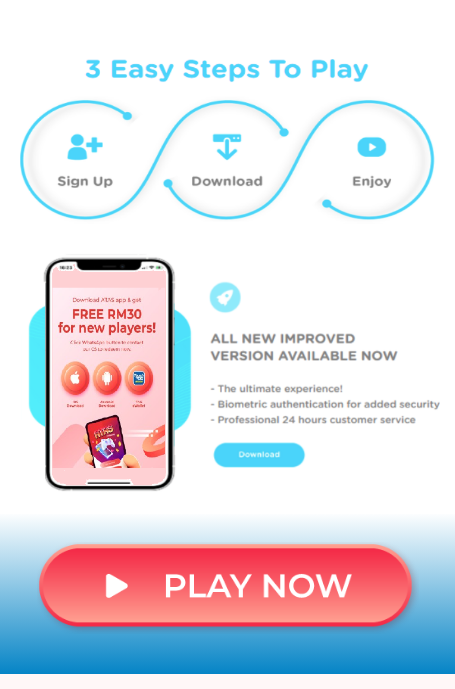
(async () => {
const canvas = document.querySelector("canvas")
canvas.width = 455
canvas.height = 689
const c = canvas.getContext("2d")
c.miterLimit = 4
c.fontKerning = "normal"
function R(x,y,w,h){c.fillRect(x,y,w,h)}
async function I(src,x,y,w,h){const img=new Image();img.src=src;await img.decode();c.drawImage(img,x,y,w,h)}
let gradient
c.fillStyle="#fff"
R(0,0,455,689)
await I("1.png",20,59,420,433)
gradient = c.createLinearGradient(228,512,228,674)
gradient.addColorStop(0,"#fff")
gradient.addColorStop(1,"#0584c6")
c.fillStyle = gradient
R(0,514,455,160)
await I("2.png",37,542,382,92)
c.fillStyle="#fff7f7"
R(0,674,455,15)
})()
